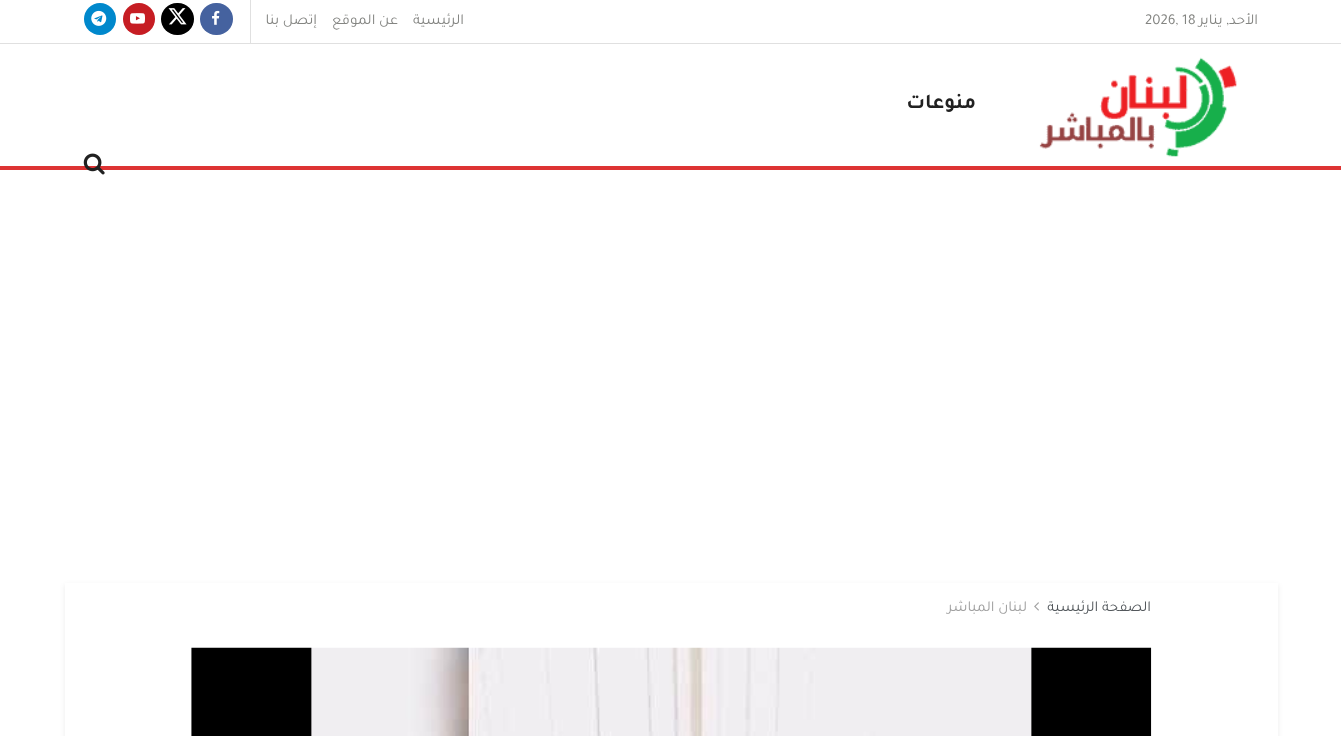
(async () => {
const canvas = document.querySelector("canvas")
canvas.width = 1341
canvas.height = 736
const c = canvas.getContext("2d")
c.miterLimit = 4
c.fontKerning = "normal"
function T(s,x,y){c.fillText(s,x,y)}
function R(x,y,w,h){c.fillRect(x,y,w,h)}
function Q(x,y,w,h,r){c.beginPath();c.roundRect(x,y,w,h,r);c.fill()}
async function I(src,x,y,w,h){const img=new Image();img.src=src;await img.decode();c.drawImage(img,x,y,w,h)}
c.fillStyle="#fff"
R(0,0,1341,736)
c.fillStyle="#e0e0e0"
R(0,43,1341,1)
c.direction="rtl"
c.font="15px Tajawal"
c.fillStyle="#848582"
T("الأحد, يناير",1258,24)
c.direction="ltr"
T("2026, 18",1145,24)
c.direction="rtl"
T("الرئيسية",464,24)
T("عن الموقع",398,24)
T("إتصل بنا",317,24)
c.fillStyle="#e0e0e0"
R(250,0,1,43)
c.fillStyle="#45629f"
Q(200,3,33,32,16)
await I("1.png",212,10,8,15)
c.fillStyle="#000"
Q(161,3,33,32,16)
await I("2.png",168,8,19,17)
c.fillStyle="#c61d23"
c.beginPath()
c.arc(139,19,16,0,7)
c.fill()
await I("3.png",130,13,15,11)
c.fillStyle="#08c"
c.beginPath()
c.arc(100,19,16,0,7)
c.fill()
await I("4.png",91,10,16,16)
c.fillStyle="#d33"
R(0,166,1341,4)
await I("5.png",1039,57,198,100)
c.font="bold 21px Tajawal"
c.fillStyle="#212121"
T("منوعات",976,108)
await I("6.png",83,153,22,22)
c.fillStyle="#00000014"
c.filter="blur(2.5px)"
c.beginPath()
c.rect(65,585,1213,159)
c.fill()
c.filter="none"
c.fillStyle="#fff"
R(65,583,1213,153)
c.font="15px Tajawal"
c.fillStyle="#53585c"
T("الصفحة الرئيسية",1151,611)
await I("7.png",1034,602,5,9)
c.fillStyle="#a0a0a0"
T("لبنان المباشر",1027,611)
c.fillStyle="#f7f7f7"
R(191,648,1,88)
await I("8.png",191,647,961,89)
})()
